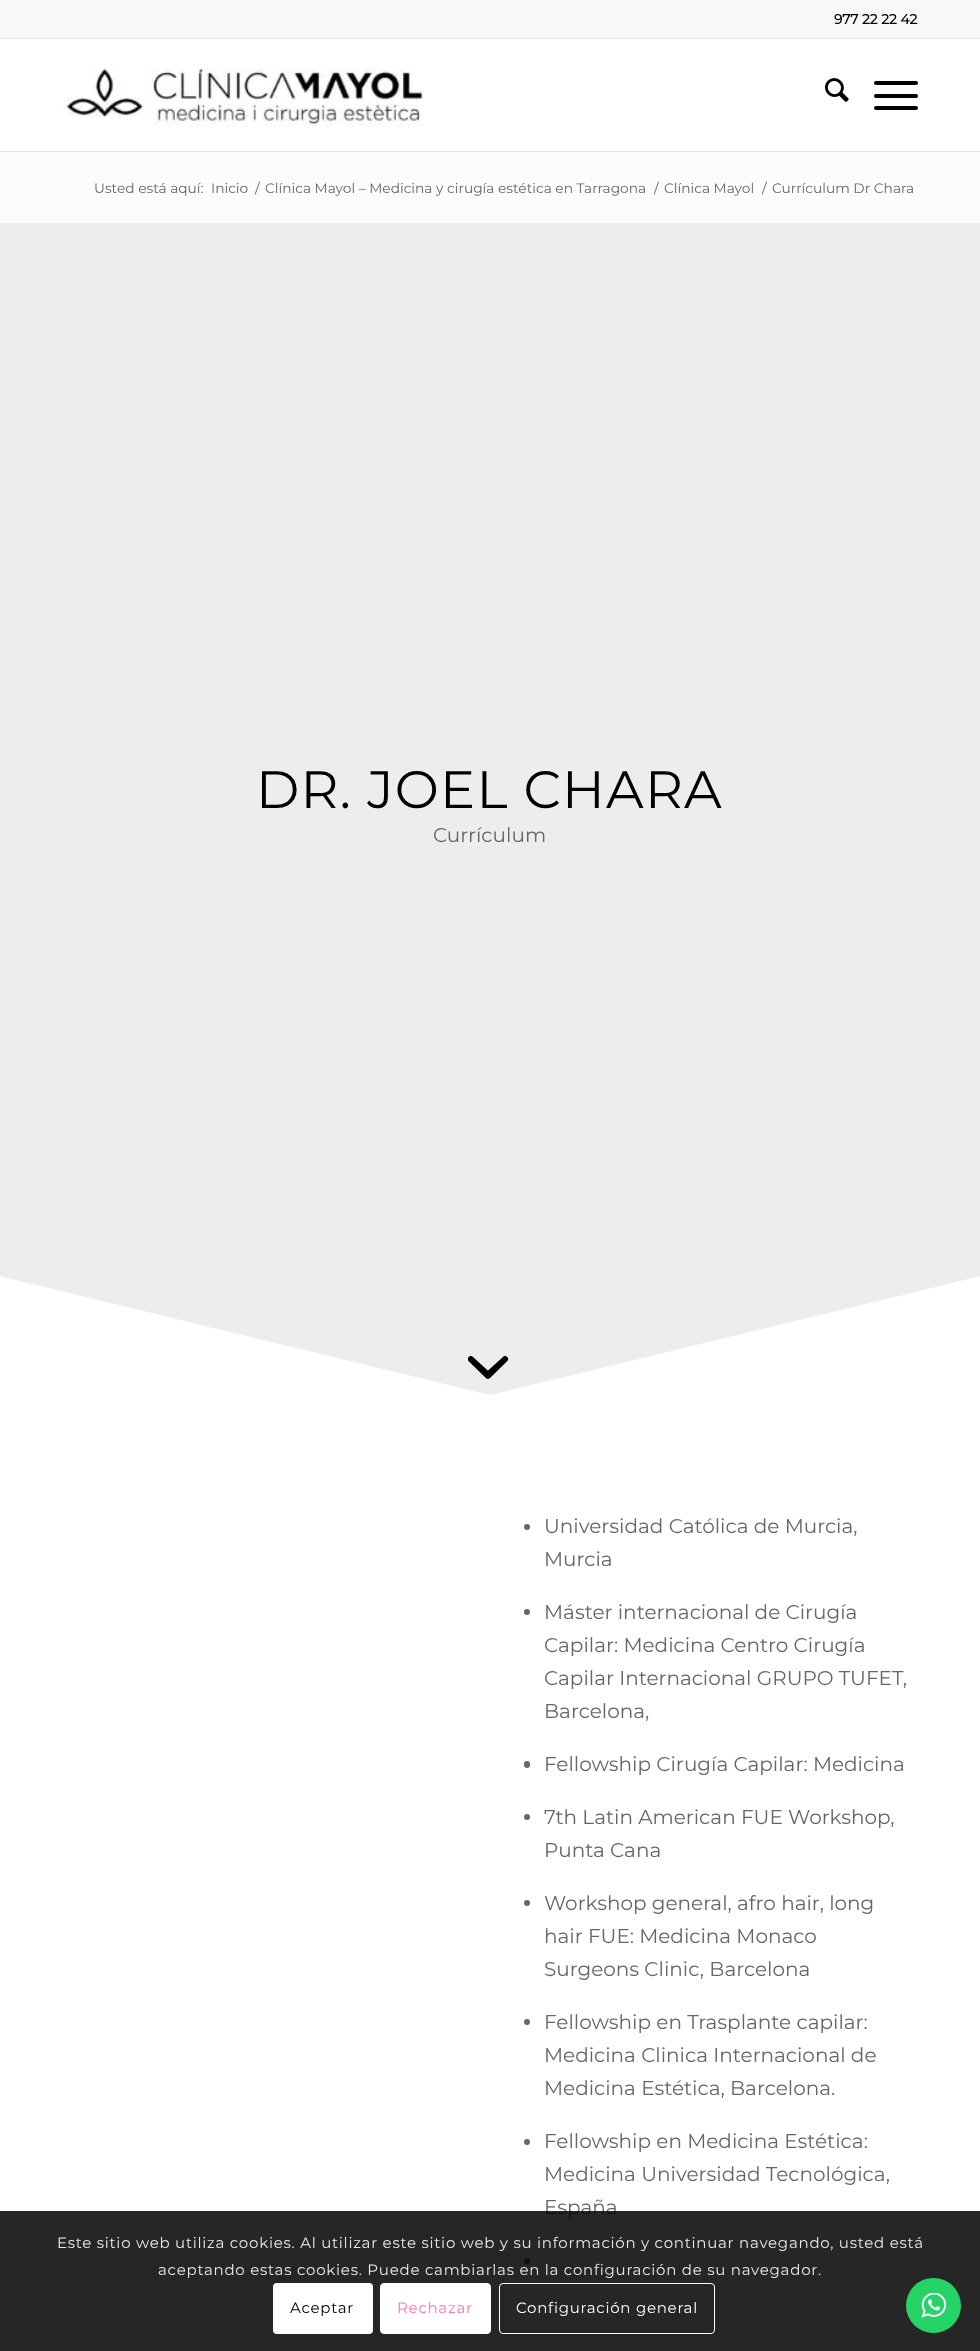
(async () => {
const canvas = document.querySelector("canvas")
canvas.width = 980
canvas.height = 2351
const c = canvas.getContext("2d")
c.miterLimit = 4
c.fontKerning = "normal"
function T(s,x,y){c.fillText(s,x,y)}
function R(x,y,w,h){c.fillRect(x,y,w,h)}
function Q(x,y,w,h,r){c.beginPath();c.roundRect(x,y,w,h,r);c.fill()}
async function I(src,x,y,w,h){const img=new Image();img.src=src;await img.decode();c.drawImage(img,x,y,w,h)}
let path
c.fillStyle="#fff"
R(0,0,980,2351)
c.fillStyle="#f8f8f8"
R(0,0,980,38)
c.fillStyle="#e1e1e1"
R(0,38,980,1)
c.font="bold 13.75px Montserrat"
c.fillStyle="#000"
T("977 22 22 42",834,24)
c.fillStyle="#e1e1e1"
R(0,151,980,1)
await I("1.png",63,68,361,59)
await I("2.png",825,78,24,24)
c.fillStyle="#000"
Q(874,94,44,4,2)
Q(874,81,44,4,2)
Q(874,106,44,4,2)
c.fillStyle="#fcfcfc"
R(0,153,980,70)
c.font="100 13.75px Montserrat"
c.fillStyle="#666"
T("Usted está aquí:",94,193)
T("Inicio",211,193)
T("/",255,193)
T("Clínica Mayol – Medicina y cirugía estética en Tarragona",265,193)
T("/",654,193)
T("Clínica Mayol",664,193)
T("/",762,193)
T("Currículum Dr Chara",772,193)
c.fillStyle="#ededed"
R(0,223,980,1172)
c.letterSpacing="1.25px"
c.font="100 52.5px Montserrat"
c.fillStyle="#000"
T("DR. JOEL CHARA",256,808)
c.letterSpacing="0px"
c.font="100 20px Montserrat"
c.fillStyle="#666"
T("Currículum",433,842)
c.fillStyle="#fff"
path = new Path2D("M490 1395l-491-119v125h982v-125z")
c.fill(path)
await I("3.png",468,1355,41,24)
c.fillStyle="#666"
c.beginPath()
c.arc(527,1527,3,0,7)
c.fill()
T("Universidad Católica de Murcia,",544,1533)
T("Murcia",544,1566)
c.beginPath()
c.arc(527,1612,3,0,7)
c.fill()
T("Máster internacional de Cirugía",544,1619)
T("Capilar: Medicina Centro Cirugía",544,1652)
T("Capilar Internacional GRUPO TUFET,",544,1685)
T("Barcelona,",544,1718)
Q(524,1761,6,7,3)
T("Fellowship Cirugía Capilar: Medicina",544,1771)
c.beginPath()
c.arc(527,1817,3,0,7)
c.fill()
T("7th Latin American FUE Workshop,",544,1824)
T("Punta Cana",544,1857)
c.beginPath()
c.arc(527,1903,3,0,7)
c.fill()
T("Workshop general, afro hair, long",544,1910)
T("hair FUE: Medicina Monaco",544,1943)
T("Surgeons Clinic, Barcelona",544,1976)
c.beginPath()
c.arc(527,2022,3,0,7)
c.fill()
T("Fellowship en Trasplante capilar:",544,2029)
T("Medicina Clinica Internacional de",544,2062)
T("Medicina Estética, Barcelona.",544,2095)
c.beginPath()
c.arc(527,2142,3,0,7)
c.fill()
T("Fellowship en Medicina Estética:",544,2148)
T("Medicina Universidad Tecnológica,",544,2181)
T("España",544,2214)
c.beginPath()
c.arc(527,2261,3,0,7)
c.fill()
c.fillStyle="#000000d9"
R(0,2211,980,140)
c.letterSpacing="0.75px"
c.font="100 15px Montserrat"
c.fillStyle="#e9e9e9"
T("Este sitio web utiliza cookies. Al utilizar este sitio web y su información y continuar navegando, usted está",57,2248)
T("aceptando estas cookies. Puede cambiarlas en la configuración de su navegador.",158,2275)
c.fillStyle="#fff"
Q(273,2283,100,51,4)
c.fillStyle="#000"
T("Aceptar",290,2313)
c.fillStyle="#fff"
c.beginPath()
c.roundRect(380.5,2283.5,110,50,3.5)
c.fill()
c.strokeStyle="#fff"
c.stroke()
c.fillStyle="#ff75b5"
T("Rechazar",397,2313)
c.beginPath()
c.roundRect(499.5,2283.5,215,50,3.5)
c.stroke()
c.fillStyle="#fff"
T("Configuración general",516,2313)
c.fillStyle="#25d366"
c.beginPath()
c.arc(933.5,2305.5,27.5,0,7)
c.fill()
await I("4.png",921,2293,25,25)
})()
